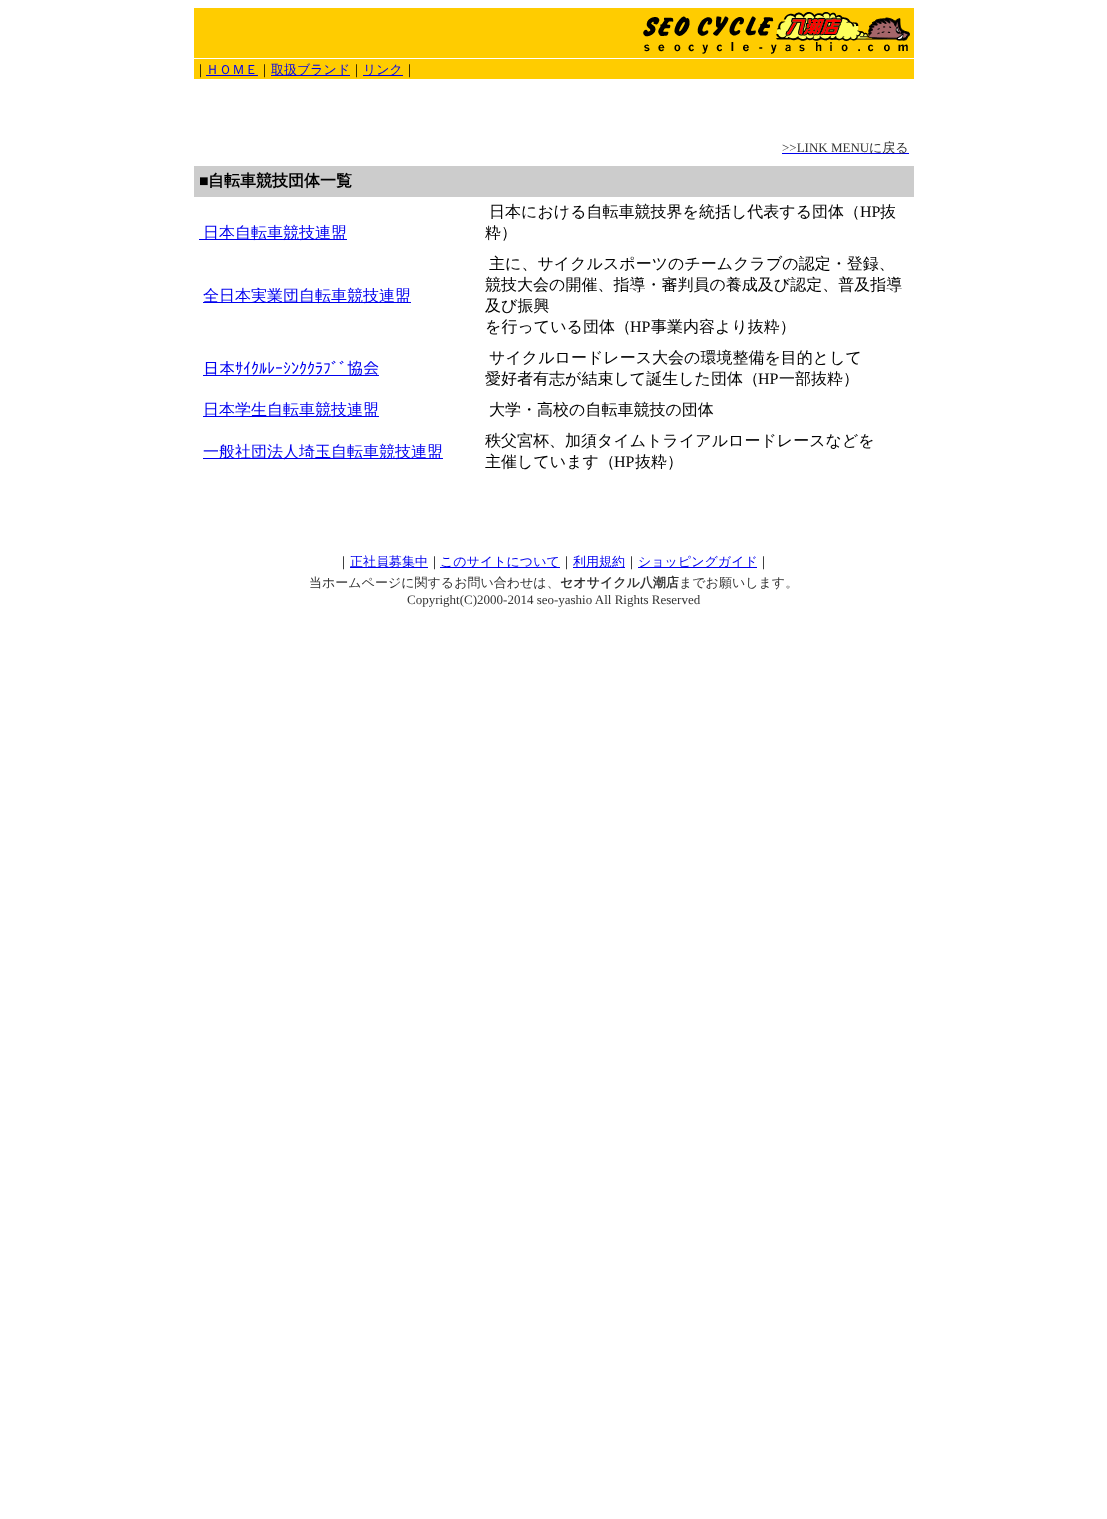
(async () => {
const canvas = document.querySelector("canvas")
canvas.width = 1107
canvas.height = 1519
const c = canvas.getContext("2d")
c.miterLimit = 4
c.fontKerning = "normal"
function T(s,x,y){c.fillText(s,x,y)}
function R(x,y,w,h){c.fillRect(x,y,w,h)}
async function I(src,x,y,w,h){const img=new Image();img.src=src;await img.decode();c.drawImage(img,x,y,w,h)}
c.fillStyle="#fff"
R(0,0,1107,1519)
c.fillStyle="#fc0"
R(194,8,720,50)
await I("1.png",643,12,267,42)
R(194,59,720,20)
c.font="500 13px WenQuanYi Zen Hei"
c.fillStyle="#000"
T("｜",194,74)
c.fillStyle="#00e"
T("ＨＯＭＥ",206,74)
R(206,75,52,1)
c.fillStyle="#000"
T("｜",258,74)
c.fillStyle="#00e"
R(271,75,79,1)
T("取扱ブランド",271,74)
c.fillStyle="#000"
T("｜",350,74)
c.fillStyle="#00e"
R(363,75,40,1)
T("リンク",363,74)
c.fillStyle="#000"
T("｜",403,74)
c.font="13px Liberation Serif"
c.fillStyle="#333"
T(">>LINK MENU",782,152)
c.fillStyle="#00e"
R(782,153,127,1)
c.font="500 13px WenQuanYi Zen Hei"
c.fillStyle="#333"
T("に戻る",869,152)
c.fillStyle="#ccc"
R(194,166,720,31)
c.font="bold 16px Liberation Serif"
c.fillStyle="#000"
T("■",199,186)
c.font="bold 16px WenQuanYi Zen Hei"
T("自転車競技団体一覧",208,186)
c.fillStyle="#00e"
R(199,239,148,1)
c.font="500 16px WenQuanYi Zen Hei"
T("日本自転車競技連盟",203,238)
c.fillStyle="#000"
T("日本における自転車競技界を統括し代表する団体（",489,217)
c.font="16px Liberation Serif"
T("HP",860,217)
c.font="500 16px WenQuanYi Zen Hei"
T("抜",880,217)
T("粋）",485,238)
c.fillStyle="#00e"
R(203,302,208,1)
T("全日本実業団自転車競技連盟",203,301)
c.fillStyle="#000"
T("主に、サイクルスポーツのチームクラブの認定・登録、",489,269)
T("競技大会の開催、指導・審判員の養成及び認定、普及指導",485,290)
T("及び振興",485,311)
T("を行っている団体（",485,332)
c.font="16px Liberation Serif"
T("HP",630,332)
c.font="500 16px WenQuanYi Zen Hei"
T("事業内容より抜粋）",651,332)
c.fillStyle="#00e"
R(203,375,176,1)
c.font="16px IPAPGothic"
T("日本ｻｲｸﾙﾚｰｼﾝｸｸﾗﾌﾞﾞ協会",203,374)
c.font="500 16px WenQuanYi Zen Hei"
c.fillStyle="#000"
T("サイクルロードレース大会の環境整備を目的として",489,363)
T("愛好者有志が結束して誕生した団体（",485,384)
c.font="16px Liberation Serif"
T("HP",758,384)
c.font="500 16px WenQuanYi Zen Hei"
T("一部抜粋）",779,384)
c.fillStyle="#00e"
R(203,416,176,1)
T("日本学生自転車競技連盟",203,415)
c.fillStyle="#000"
T("大学・高校の自転車競技の団体",489,415)
c.fillStyle="#00e"
R(203,458,240,1)
T("一般社団法人埼玉自転車競技連盟",203,457)
c.fillStyle="#000"
T("秩父宮杯、加須タイムトライアルロードレースなどを",485,446)
T("主催しています（",485,467)
c.font="16px Liberation Serif"
T("HP",614,467)
c.font="500 16px WenQuanYi Zen Hei"
T("抜粋）",635,467)
c.font="500 13px WenQuanYi Zen Hei"
T("｜",337,566)
c.fillStyle="#00e"
R(350,567,78,1)
T("正社員募集中",350,566)
c.fillStyle="#000"
T("｜",428,566)
c.fillStyle="#00e"
R(440,567,120,1)
T("このサイトについて",440,566)
c.fillStyle="#000"
T("｜",560,566)
c.fillStyle="#00e"
R(573,567,52,1)
T("利用規約",573,566)
c.fillStyle="#000"
T("｜",625,566)
c.fillStyle="#00e"
R(638,567,119,1)
T("ショッピングガイド",638,566)
c.fillStyle="#000"
T("｜",757,566)
c.fillStyle="#333"
T("当ホームページに関するお問い合わせは、",309,587)
c.font="bold 13px WenQuanYi Zen Hei"
T("セオサイクル八潮店",560,587)
c.font="500 13px WenQuanYi Zen Hei"
T("までお願いします。",679,587)
c.font="13px Liberation Serif"
T("Copyright(C)2000-2014 seo-yashio All Rights Reserved",407,604)
})()
